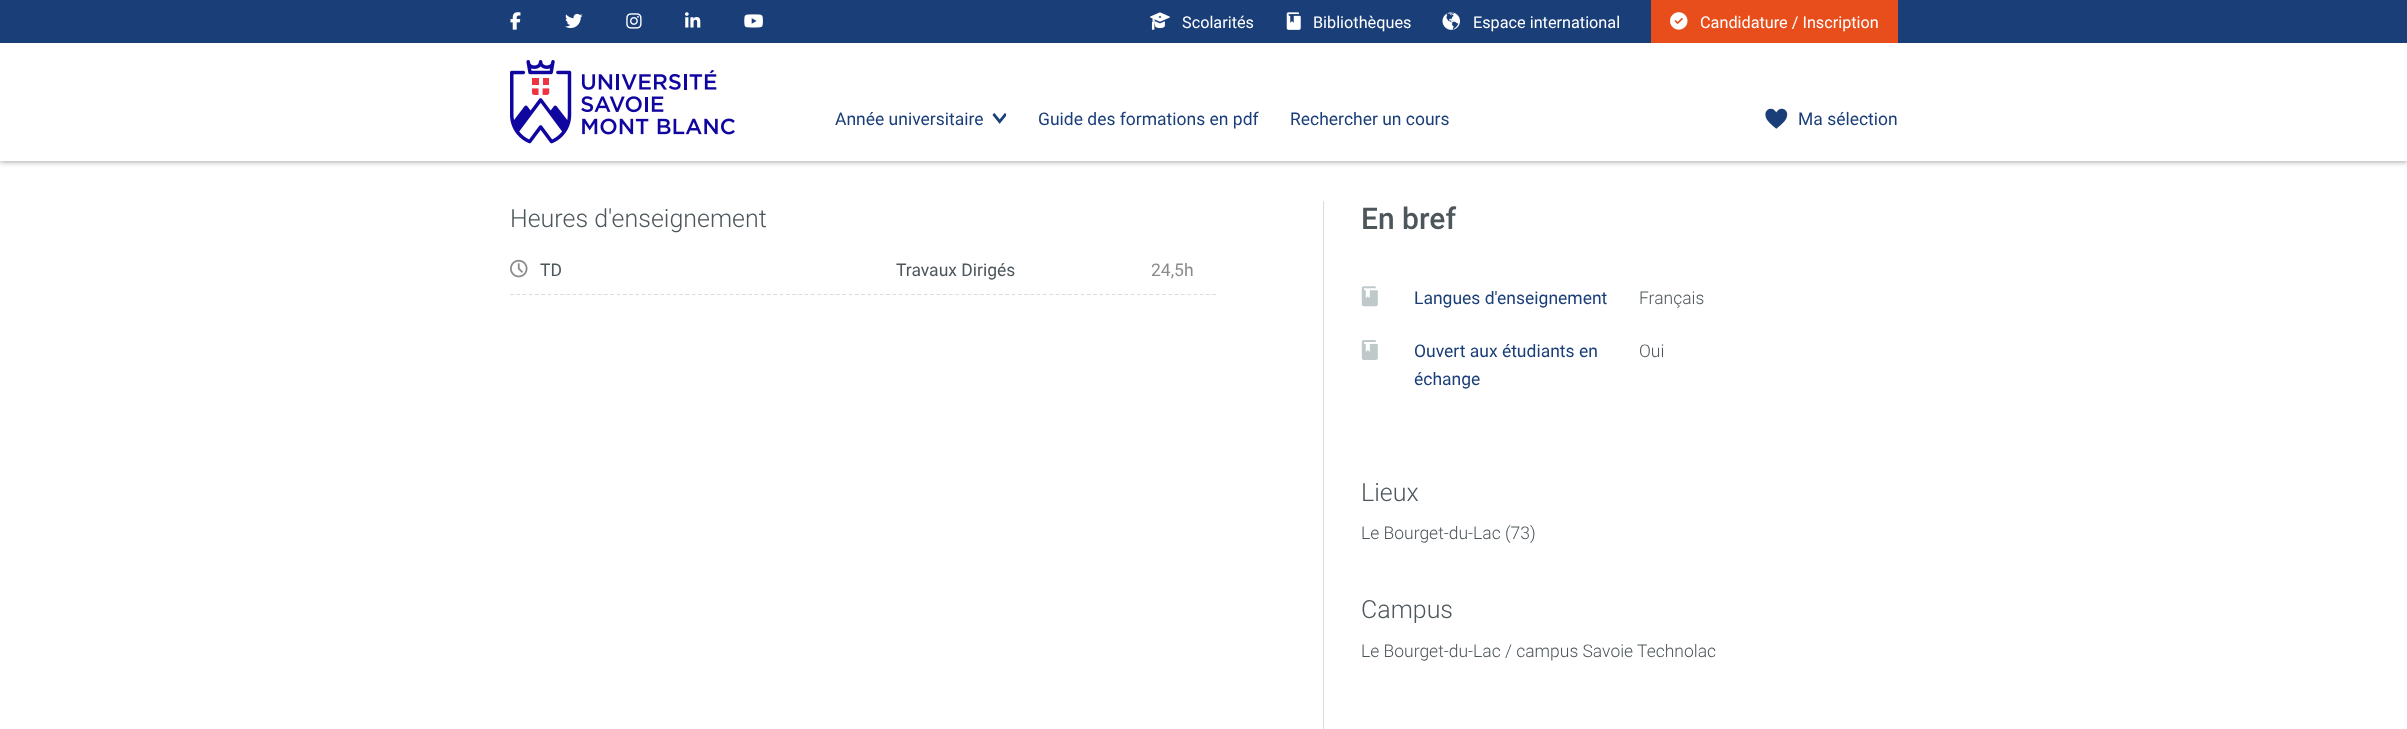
(async () => {
const canvas = document.querySelector("canvas")
canvas.width = 2407
canvas.height = 729
const c = canvas.getContext("2d")
c.miterLimit = 4
c.fontKerning = "normal"
function T(s,x,y){c.fillText(s,x,y)}
function R(x,y,w,h){c.fillRect(x,y,w,h)}
async function I(src,x,y,w,h){const img=new Image();img.src=src;await img.decode();c.drawImage(img,x,y,w,h)}
let path
c.fillStyle="#fff"
R(0,0,2407,729)
c.fillStyle="#8a8a8a"
c.filter="blur(3px)"
c.beginPath()
c.rect(0,0,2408,161)
c.fill()
c.filter="none"
c.fillStyle="#fff"
R(0,43,2407,118)
c.fillStyle="#1a3e78"
R(0,0,2407,43)
await I("1.png",510,12,11,18)
await I("2.png",565,13,18,16)
await I("3.png",626,13,16,16)
await I("4.png",685,12,16,16)
await I("5.png",744,14,19,14)
await I("6.png",1150,12,20,18)
c.font="16.25px Roboto"
c.fillStyle="#fff"
T("Scolarités",1182,28)
await I("7.png",1286,12,15,18)
T("Bibliothèques",1313,28)
await I("8.png",1442,12,18,18)
T("Espace international",1473,28)
c.fillStyle="#e84e1b"
R(1651,0,247,43)
await I("9.png",1670,12,18,18)
c.fillStyle="#fff"
T("Candidature / Inscription",1700,28)
await I("10.png",510,60,225,84)
c.font="17.5px Roboto"
c.fillStyle="#1a3e78"
T("Année universitaire",835,125)
await I("11.png",992,112,14,12)
T("Guide des formations en pdf",1038,125)
T("Rechercher un cours",1290,125)
await I("12.png",1765,108,23,21)
T("Ma sélection",1798,125)
c.font="300 25px Roboto"
c.fillStyle="#4d565b"
T("Heures d'enseignement",510,227)
path = new Path2D("M510 294.5h706")
c.strokeStyle="#dcdcdc"
c.lineWidth=1.2
c.setLineDash([3.75,2.52])
c.stroke(path)
await I("13.png",510,259,18,19)
c.font="17.5px Roboto"
T("TD",540,276)
T("Travaux Dirigés",896,276)
c.fillStyle="#8a8a8a"
T("24,5h",1151,276)
c.fillStyle="#dcdcdc"
R(1323,201,1,528)
c.font="500 30px Roboto"
c.fillStyle="#4d565b"
T("En bref",1361,229)
await I("14.png",1361,286,17,21)
c.font="17.5px Roboto"
c.fillStyle="#1a3e78"
T("Langues d'enseignement",1414,304)
c.font="300 17.5px Roboto"
c.fillStyle="#4d565b"
T("Français",1639,304)
await I("15.png",1361,340,17,20)
c.font="17.5px Roboto"
c.fillStyle="#1a3e78"
T("Ouvert aux étudiants en",1414,357)
T("échange",1414,385)
c.font="300 17.5px Roboto"
c.fillStyle="#4d565b"
T("Oui",1639,357)
c.font="300 25px Roboto"
T("Lieux",1361,501)
c.font="300 17.5px Roboto"
T("Le Bourget-du-Lac (73)",1361,539)
c.font="300 25px Roboto"
T("Campus",1361,618)
c.font="300 17.5px Roboto"
T("Le Bourget-du-Lac / campus Savoie Technolac",1361,657)
})()
